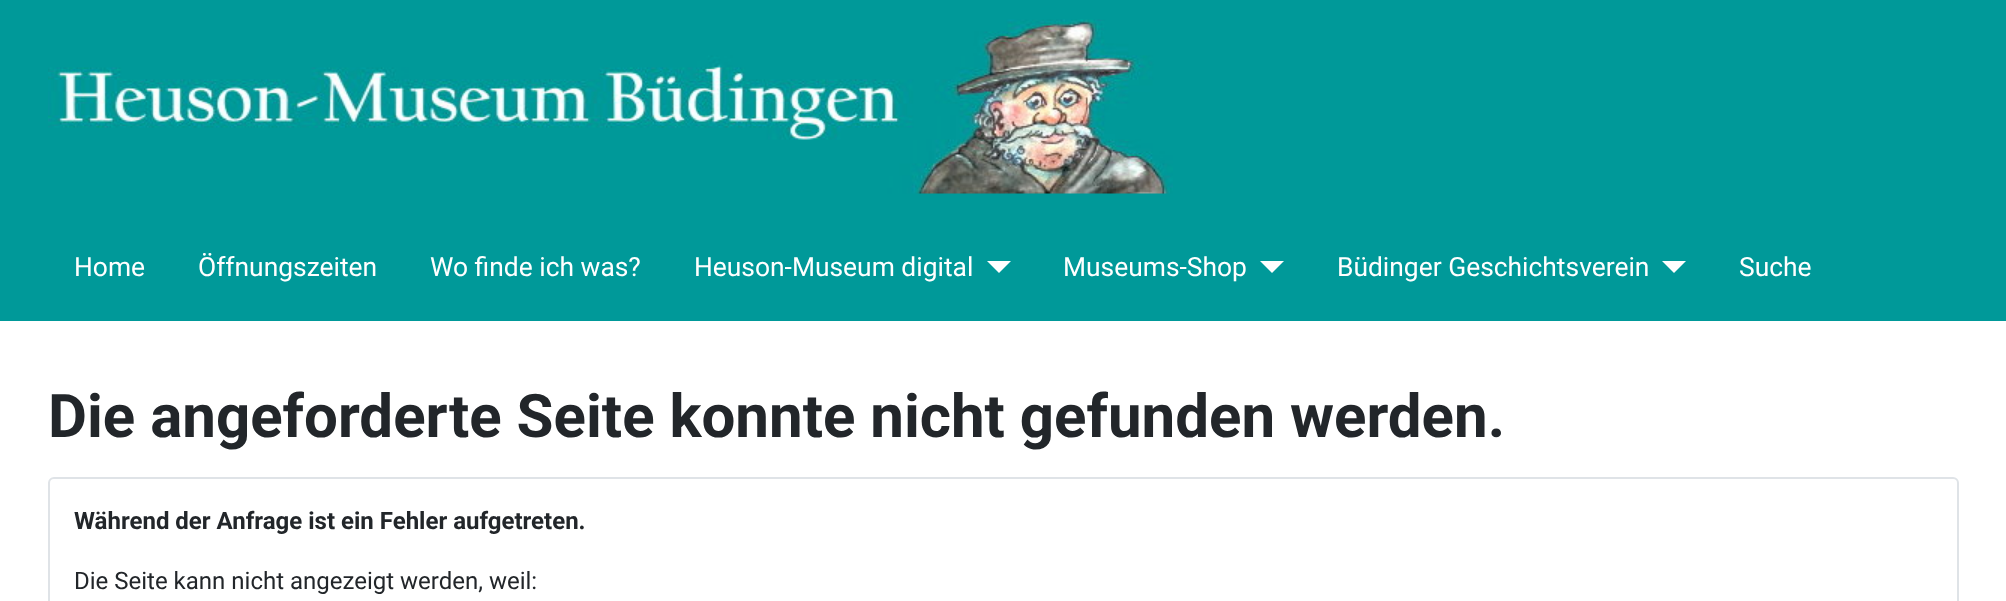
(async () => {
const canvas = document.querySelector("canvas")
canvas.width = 2006
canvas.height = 601
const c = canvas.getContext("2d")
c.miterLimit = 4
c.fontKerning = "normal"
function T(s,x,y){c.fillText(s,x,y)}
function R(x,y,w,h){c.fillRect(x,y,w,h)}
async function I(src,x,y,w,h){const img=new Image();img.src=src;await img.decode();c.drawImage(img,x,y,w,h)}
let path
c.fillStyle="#fff"
R(0,0,2006,601)
c.fillStyle="#099"
R(0,0,2006,321)
await I("1.png",48,19,1125,175)
c.font="26.4px Roboto"
c.fillStyle="#fff"
T("Home",74,276)
T("Öffnungszeiten",198,276)
T("Wo finde ich was?",430,276)
T("Heuson-Museum digital",694,276)
path = new Path2D("M987 261h24l-12 12z")
c.fill(path)
T("Museums-Shop",1063,276)
path = new Path2D("M1260 261h24l-12 12z")
c.fill(path)
T("Büdinger Geschichtsverein",1337,276)
path = new Path2D("M1662 261h24l-12 12z")
c.fill(path)
T("Suche",1739,276)
c.font="bold 60px Roboto"
c.fillStyle="#22262a"
T("Die angeforderte Seite konnte nicht gefunden werden.",48,437)
c.beginPath()
c.roundRect(49,478,1909,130,5)
c.strokeStyle="#dfe3e7"
c.lineWidth=2
c.stroke()
c.font="bold 24px Roboto"
T("Während der Anfrage ist ein Fehler aufgetreten.",74,529)
c.font="24px Roboto"
T("Die Seite kann nicht angezeigt werden, weil:",74,589)
})()
